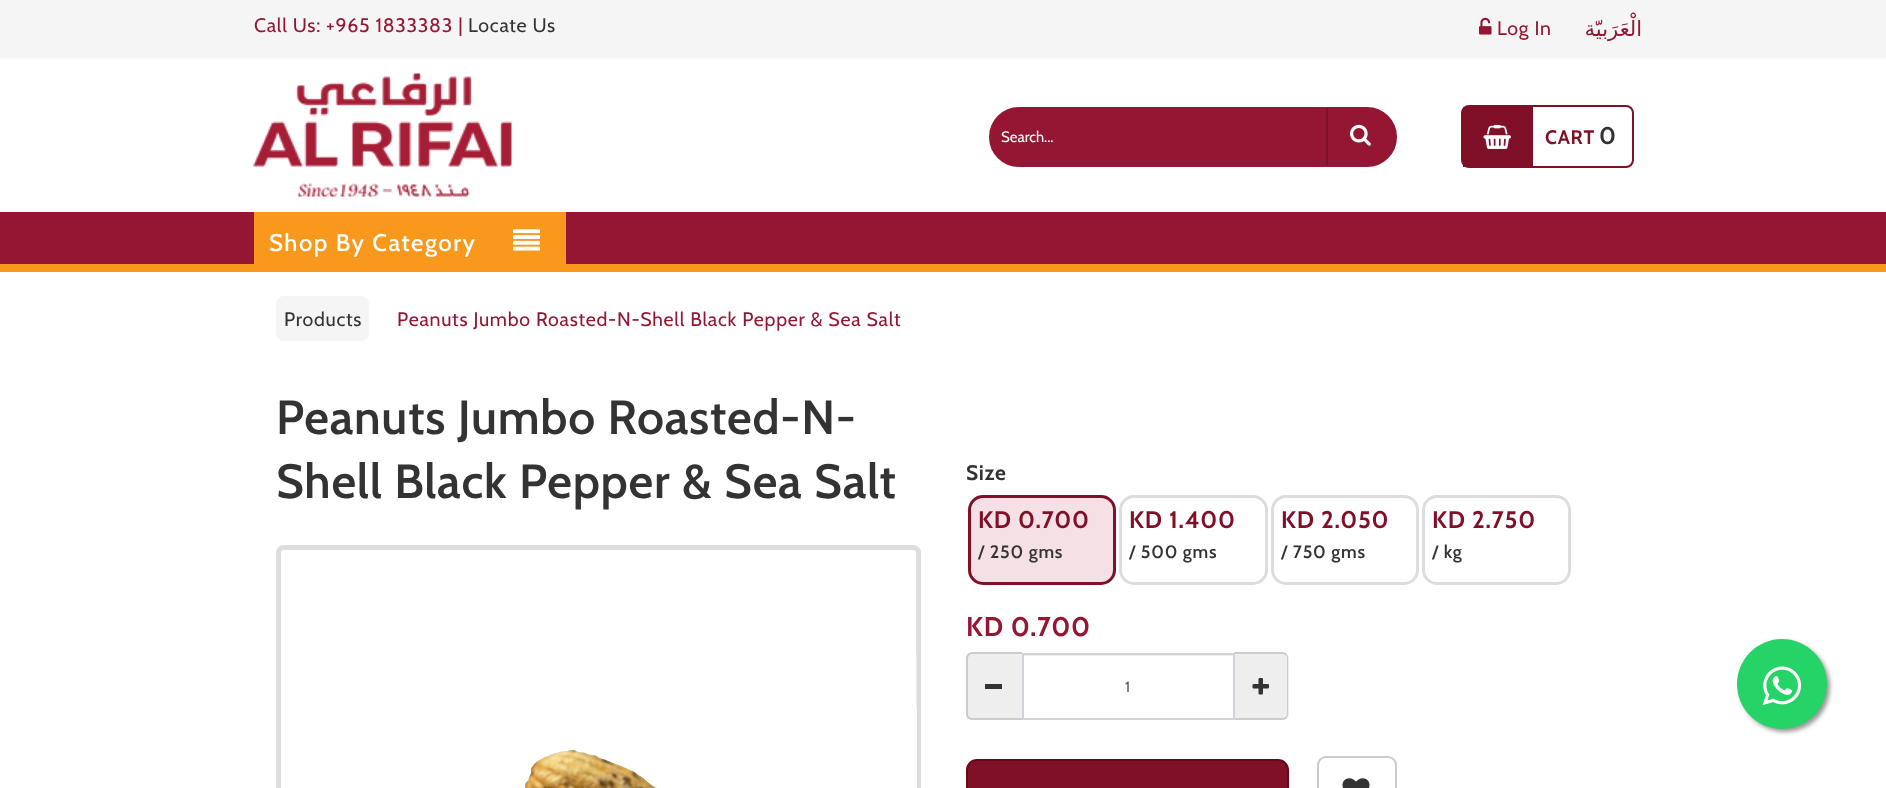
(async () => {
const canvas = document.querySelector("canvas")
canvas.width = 1886
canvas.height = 788
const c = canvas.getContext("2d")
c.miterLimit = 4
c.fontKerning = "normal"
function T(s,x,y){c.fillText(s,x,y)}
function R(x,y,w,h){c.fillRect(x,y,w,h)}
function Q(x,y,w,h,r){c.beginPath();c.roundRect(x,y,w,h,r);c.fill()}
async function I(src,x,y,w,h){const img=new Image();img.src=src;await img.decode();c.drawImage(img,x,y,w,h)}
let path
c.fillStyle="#fff"
R(0,0,1886,788)
c.fillStyle="#f5f5f5"
R(0,0,1886,57)
c.fillStyle="#f8f8f8"
R(0,57,1886,2)
c.letterSpacing="0.75px"
c.font="19.5px Cabin"
c.fillStyle="#951632"
T("Call Us: +965 1833383 |",254,32)
c.fillStyle="#333"
T("Locate Us",468,32)
await I("1.png",1479,17,13,18)
c.fillStyle="#951632"
T("Log In",1497,35)
c.direction="rtl"
c.font="21px DejaVu Sans"
T("الْعَرَبيّة",1642,36)
await I("2.png",253,73,259,124)
c.beginPath()
c.roundRect(990,108,406,58,29)
c.fill()
c.strokeStyle="#951632"
c.lineWidth=2
c.stroke()
c.letterSpacing="0px"
c.direction="ltr"
c.font="15px Cabin"
c.fillStyle="#fff"
T("Search...",1001,142)
c.fillStyle="#7f1028"
R(1326,108,2,57)
await I("3.png",1350,124,21,22)
c.beginPath()
c.roundRect(1462,106,171,61,7)
c.strokeStyle="#7f1028"
c.stroke()
R(1463,107,70,60)
await I("4.png",1483,124,28,25)
c.letterSpacing="0.75px"
c.font="bold 19.5px Cabin"
T("CART",1545,144)
c.font="bold 24px Cabin"
c.fillStyle="#333"
T("0",1599,144)
c.fillStyle="#999"
c.filter="blur(2px)"
c.beginPath()
c.roundRect(1740,642,90,90,45)
c.fill()
c.filter="none"
c.fillStyle="#25d366"
c.beginPath()
c.arc(1782,684,45,0,7)
c.fill()
await I("5.png",1762,666,40,40)
c.fillStyle="#951632"
R(0,212,1886,52)
c.fillStyle="#f8981c"
R(0,264,1886,8)
R(254,212,312,52)
c.letterSpacing="1.5px"
c.font="500 24px Cabin"
c.fillStyle="#fff"
T("Shop By Category",269,251)
await I("6.png",513,229,27,22)
c.fillStyle="#f5f5f5"
Q(276,296,93,45,8)
c.letterSpacing="0.75px"
c.font="19.5px Cabin"
c.fillStyle="#333"
T("Products",284,326)
c.fillStyle="#951632"
T("Peanuts Jumbo Roasted-N-Shell Black Pepper & Sea Salt",397,326)
c.font="600 48px Cabin"
c.fillStyle="#333"
T("Peanuts Jumbo Roasted-N-",276,434)
T("Shell Black Pepper & Sea Salt",276,498)
c.beginPath()
c.roundRect(278.5,547.5,640,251,5.5)
c.strokeStyle="#ddd"
c.lineWidth=5
c.stroke()
await I("7.png",524,655,393,133)
c.font="bold 21px Cabin"
T("Size",966,480)
c.fillStyle="#f4e0e5"
c.beginPath()
c.roundRect(969.5,496.5,145,87,13.5)
c.fill()
c.strokeStyle="#7f1028"
c.lineWidth=3
c.stroke()
c.font="bold 24px Cabin"
c.fillStyle="#7f1028"
T("KD 0.700",978,528)
c.font="600 18px Cabin"
c.fillStyle="#333"
T("/ 250 gms",978,558)
c.beginPath()
c.roundRect(1120.5,496.5,146,87,13.5)
c.strokeStyle="#ddd"
c.stroke()
c.font="bold 24px Cabin"
c.fillStyle="#7f1028"
T("KD 1.400",1129,528)
c.font="600 18px Cabin"
c.fillStyle="#333"
T("/ 500 gms",1129,558)
c.beginPath()
c.roundRect(1272.5,496.5,145,87,13.5)
c.stroke()
c.font="bold 24px Cabin"
c.fillStyle="#7f1028"
T("KD 2.050",1281,528)
c.font="600 18px Cabin"
c.fillStyle="#333"
T("/ 750 gms",1281,558)
c.beginPath()
c.roundRect(1423.5,496.5,146,87,13.5)
c.stroke()
c.font="bold 24px Cabin"
c.fillStyle="#7f1028"
T("KD 2.750",1432,528)
c.font="600 18px Cabin"
c.fillStyle="#333"
T("/ kg",1432,558)
c.font="bold 27px Cabin"
c.fillStyle="#951632"
T("KD 0.700",966,636)
c.fillStyle="#eee"
c.beginPath()
c.roundRect(966,653,56,67,[6,0,0,6])
c.fill()
c.fillStyle="#ccc"
path = new Path2D("M972 652h50v68h-50c-3 0-6-3-6-6v-56c0-3 3-6 6-6zm0 2h50v64h-50c-2 0-4-2-4-4v-56c0-2 2-4 4-4z")
c.fill(path,"evenodd")
c.fillStyle="#333"
R(985,684,17,5)
c.fillStyle="#ececec"
R(1023,655,210,1)
c.fillStyle="#eee"
c.beginPath()
c.roundRect(1235,653,54,67,[0,6,6,0])
c.fill()
c.fillStyle="#ccc"
path = new Path2D("M1234 652h48c4 0 6 3 6 6v56c0 3-2 6-6 6h-48zm0 2h48c3 0 5 2 5 4v56c0 2-2 4-5 4h-48z")
c.fill(path,"evenodd")
c.strokeStyle="#ced4da"
c.lineWidth=2
c.strokeRect(1023,654,211,65)
c.letterSpacing="0px"
c.font="15px Cabin"
c.fillStyle="#495057"
T("1",1125,692)
await I("8.png",1252,678,17,17)
c.fillStyle="#7f1028"
c.beginPath()
c.roundRect(967,760,321,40,10)
c.fill()
c.strokeStyle="#6a051b"
c.stroke()
c.beginPath()
c.roundRect(1318,757,78,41,8)
c.strokeStyle="#ccc"
c.stroke()
await I("9.png",1342,778,28,10)
})()
